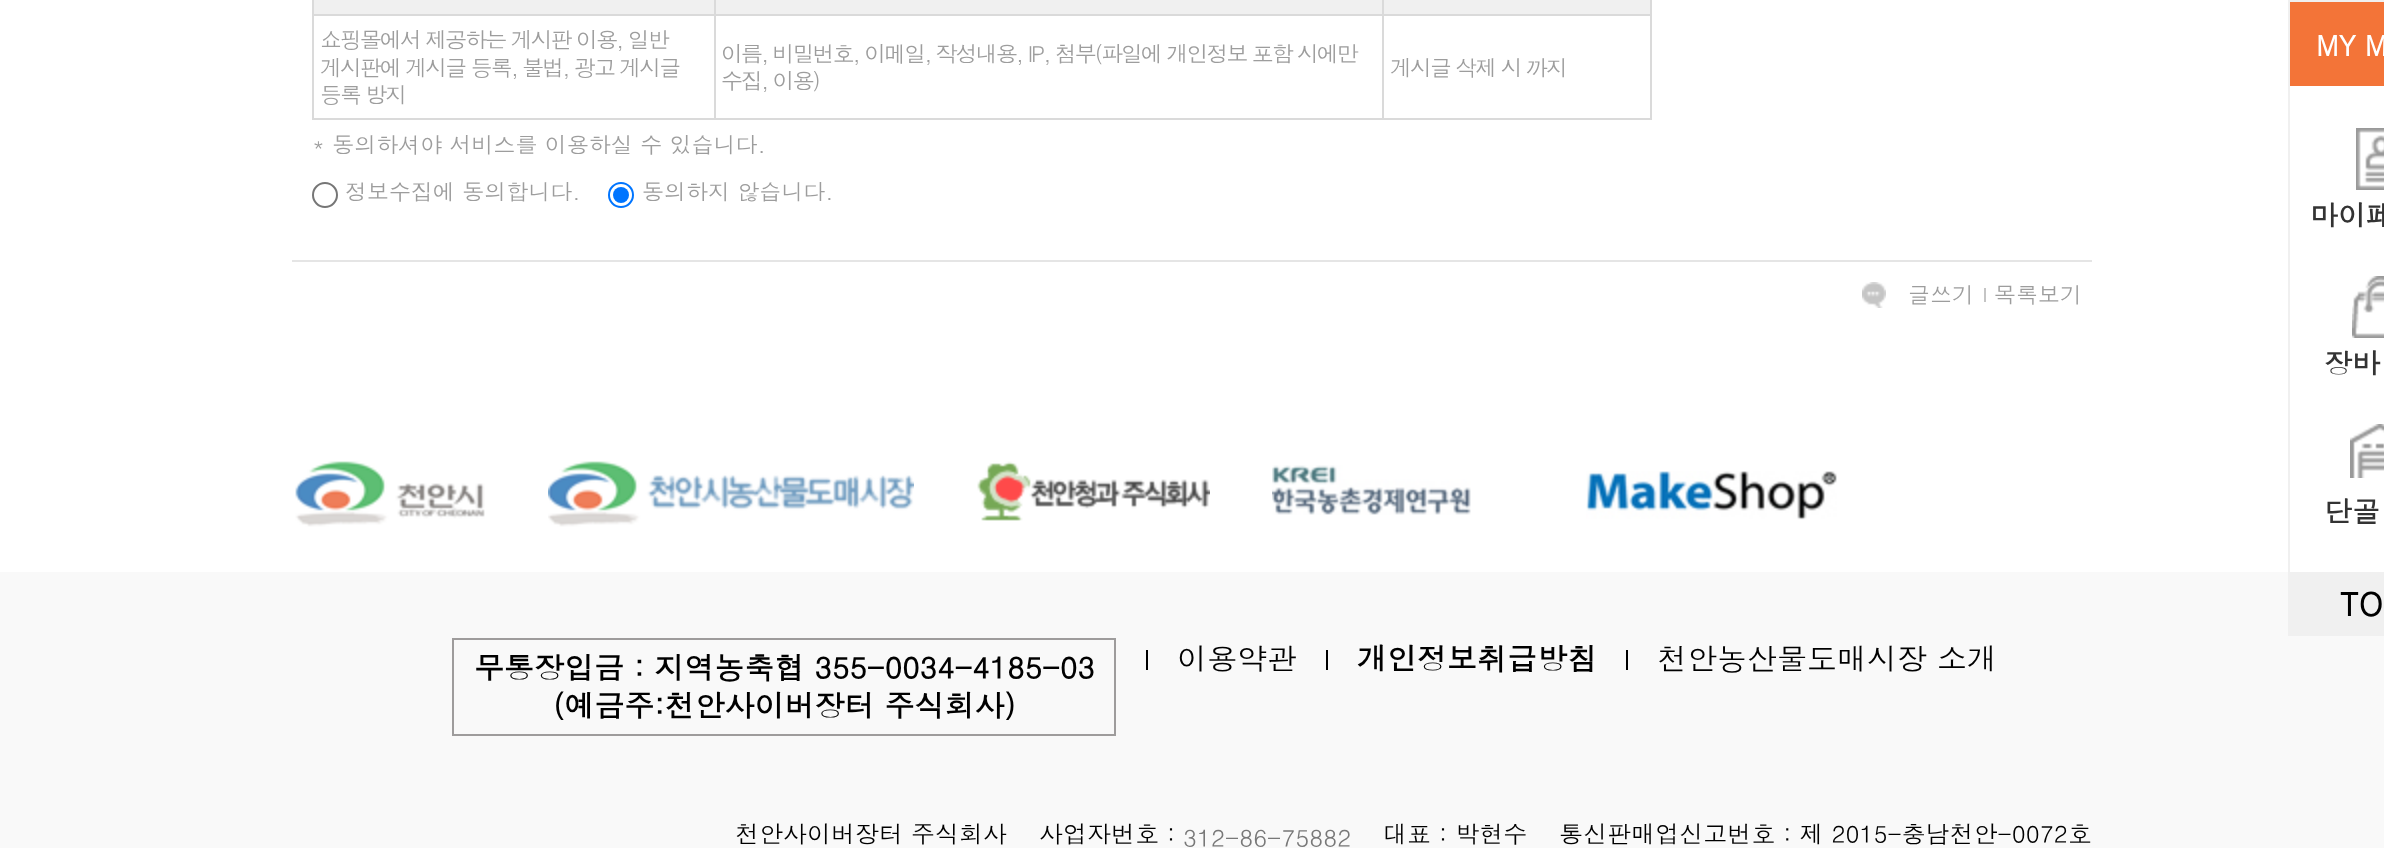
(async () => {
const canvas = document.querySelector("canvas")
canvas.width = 2384
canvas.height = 848
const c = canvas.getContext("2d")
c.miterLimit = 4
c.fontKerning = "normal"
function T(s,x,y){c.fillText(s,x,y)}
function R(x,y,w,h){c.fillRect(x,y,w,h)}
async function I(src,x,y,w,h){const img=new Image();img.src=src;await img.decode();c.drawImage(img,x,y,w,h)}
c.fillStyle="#fff"
R(0,0,2384,848)
c.fillStyle="#e5e5e5"
R(292,260,1800,2)
c.fillStyle="#dadada"
R(312,0,2,120)
c.fillStyle="#f0f0f0"
R(314,0,400,14)
c.fillStyle="#dadada"
R(1650,0,2,120)
R(1382,118,270,2)
R(1382,14,2,106)
R(1382,14,270,2)
R(1382,0,2,16)
R(714,118,670,2)
R(714,14,2,106)
R(714,14,670,2)
R(714,0,2,16)
R(312,14,404,2)
c.fillStyle="#f0f0f0"
R(716,0,666,14)
R(1384,0,266,14)
c.fillStyle="#dadada"
R(312,118,404,2)
c.letterSpacing="-2px"
c.font="22px Dotum"
c.fillStyle="#9d9d9d"
T("쇼핑몰에서 제공하는 게시판 이용, 일반",320,48)
T("게시판에 게시글 등록, 불법, 광고 게시글",320,76)
T("등록 방지",320,103)
T("이름, 비밀번호, 이메일, 작성내용, IP, 첨부(파일에 개인정보 포함 시에만",721,62)
T("수집, 이용)",721,89)
T("게시글 삭제 시 까지",1390,76)
c.letterSpacing="0px"
T("* 동의하셔야 서비스를 이용하실 수 있습니다.",312,153)
c.beginPath()
c.arc(325,195,12,0,7)
c.strokeStyle="#767676"
c.lineWidth=2
c.stroke()
T("정보수집에 동의합니다.",345,200)
c.beginPath()
c.arc(621,195,12,0,7)
c.strokeStyle="#0075ff"
c.stroke()
c.fillStyle="#0075ff"
c.beginPath()
c.arc(621,195,8,0,7)
c.fill()
c.fillStyle="#9d9d9d"
T("동의하지 않습니다.",642,200)
await I("1.png",1862,282,24,26)
T("글쓰기",1908,303)
c.fillStyle="#c5c5c5"
R(1984,288,2,14)
c.fillStyle="#9d9d9d"
T("목록보기",1994,303)
await I("2.png",295,461,190,66)
await I("3.png",548,461,366,66)
await I("4.png",977,461,233,60)
await I("5.png",1272,465,199,50)
await I("6.png",1586,471,251,49)
c.fillStyle="#f9f9f9"
R(0,572,2384,276)
c.strokeStyle="#9e9c9c"
c.strokeRect(453,639,662,96)
c.font="bold 30px Dotum"
c.fillStyle="#000"
T("무통장입금 : 지역농축협 355-0034-4185-03",474,679)
T("(예금주:천안사이버장터 주식회사)",553,717)
R(1146,650,2,20)
c.font="30px Dotum"
T("이용약관",1177,670)
R(1326,650,2,20)
c.font="bold 30px Dotum"
T("개인정보취급방침",1357,670)
R(1626,650,2,20)
c.font="30px Dotum"
T("천안농산물도매시장 소개",1657,670)
c.font="24px Dotum"
T("천안사이버장터 주식회사    사업자번호 :",735,843)
c.fillStyle="#787878"
T("312-86-75882",1183,847)
c.fillStyle="#000"
T("대표 : 박현수    통신판매업신고번호 : 제 2015-충남천안-0072호",1383,843)
c.strokeStyle="#f0f0f0"
c.strokeRect(2289,1,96,572)
c.fillStyle="#f37438"
R(2290,2,94,84)
c.font="bold 28px Dotum"
c.fillStyle="#fff"
T("MY M",2316,56)
await I("7.png",2356,128,28,62)
c.fillStyle="#333"
T("마이페",2310,226)
await I("8.png",2352,276,32,62)
T("장바",2324,374)
await I("9.png",2350,424,34,54)
T("단골",2324,522)
c.fillStyle="#f0f0f0"
R(2288,574,96,62)
c.font="bold 32px Dotum"
c.fillStyle="#000"
T("TO",2340,616)
})()
